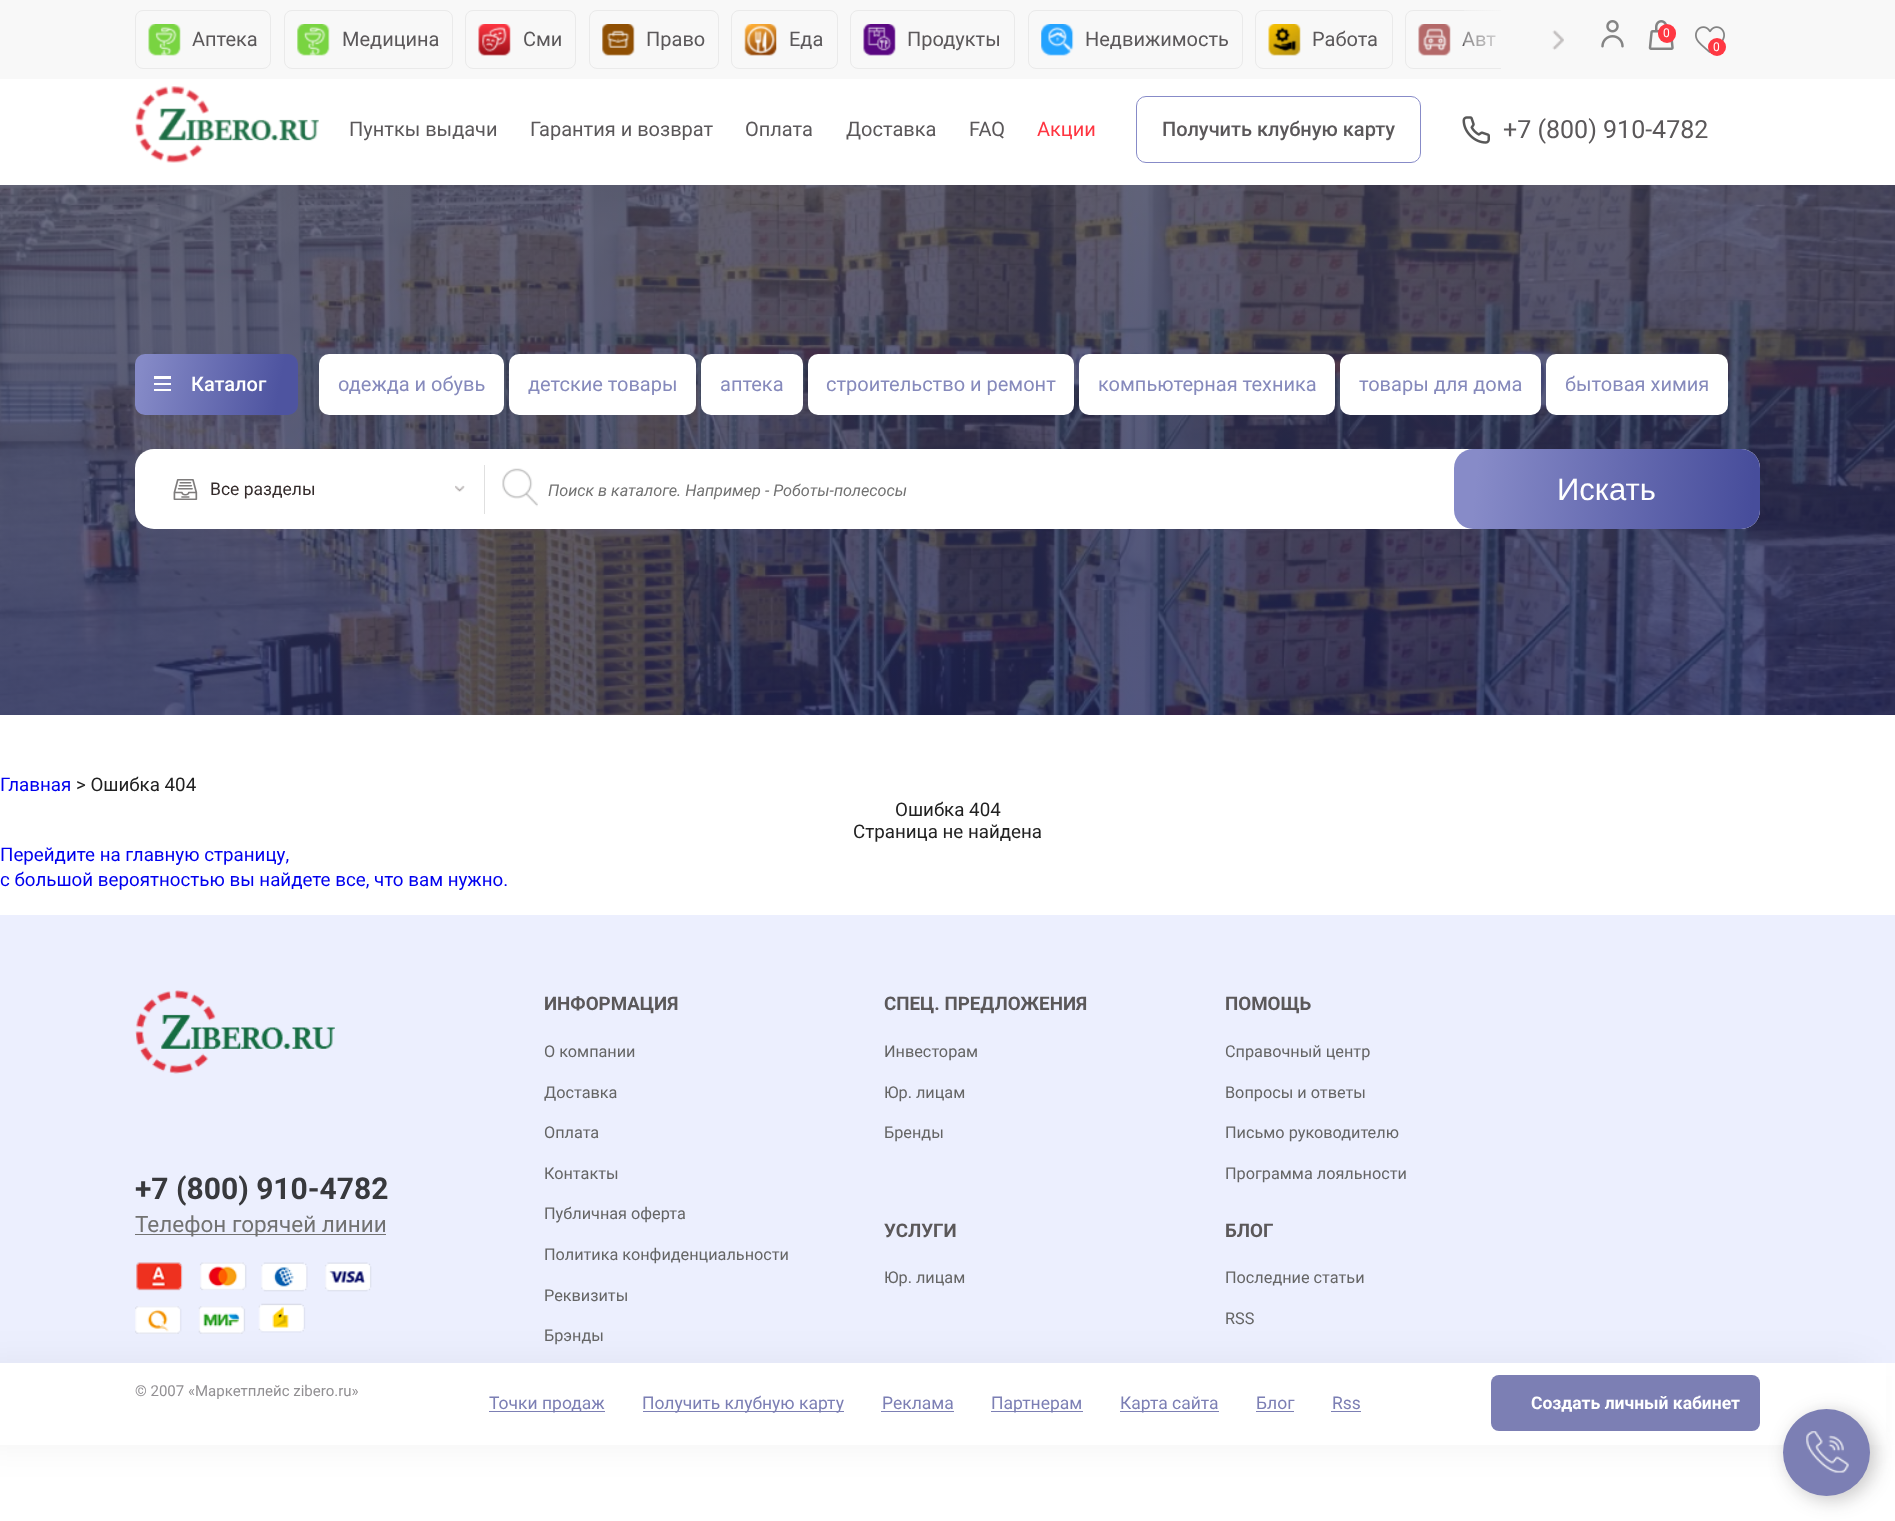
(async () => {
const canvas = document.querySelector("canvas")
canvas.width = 1895
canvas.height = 1521
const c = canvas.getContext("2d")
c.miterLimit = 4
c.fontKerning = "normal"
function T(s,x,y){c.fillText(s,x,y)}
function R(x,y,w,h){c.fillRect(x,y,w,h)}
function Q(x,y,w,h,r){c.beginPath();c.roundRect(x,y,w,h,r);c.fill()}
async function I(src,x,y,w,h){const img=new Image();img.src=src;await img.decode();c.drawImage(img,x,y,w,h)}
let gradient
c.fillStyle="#fff"
R(0,0,1895,1521)
c.fillStyle="#f8f8f8"
R(0,0,1895,79)
c.save()
c.beginPath()
c.rect(135,10,1366,59)
c.clip()
c.beginPath()
c.roundRect(1405.5,10.5,187,58,7.5)
c.strokeStyle="#eaeaea"
c.stroke()
c.restore()
c.font="20px Roboto"
c.fillStyle="#5b585a"
T("Авт",1462,46)
gradient = c.createLinearGradient(1508,38,1462,38)
gradient.addColorStop(0,"#f8f8f8e6")
gradient.addColorStop(1,"#f8f8f847")
c.fillStyle = gradient
R(1464,10,37,36)
c.beginPath()
c.roundRect(135.5,10.5,135,58,7.5)
c.strokeStyle="#eaeaea"
c.stroke()
await I("1.png",148,24,33,32)
c.fillStyle="#5b585a"
T("Аптека",192,46)
c.beginPath()
c.roundRect(284.5,10.5,168,58,7.5)
c.stroke()
await I("2.png",297,24,33,32)
T("Медицина",342,46)
c.beginPath()
c.roundRect(465.5,10.5,110,58,7.5)
c.stroke()
await I("3.png",478,24,33,32)
T("Сми",523,46)
c.beginPath()
c.roundRect(589.5,10.5,129,58,7.5)
c.stroke()
await I("4.png",602,24,33,32)
T("Право",646,46)
c.beginPath()
c.roundRect(731.5,10.5,106,58,7.5)
c.stroke()
await I("5.png",744,24,33,32)
T("Еда",789,46)
c.beginPath()
c.roundRect(850.5,10.5,164,58,7.5)
c.stroke()
await I("6.png",863,24,33,32)
T("Продукты",907,46)
c.beginPath()
c.roundRect(1028.5,10.5,214,58,7.5)
c.stroke()
await I("7.png",1041,24,33,32)
T("Недвижимость",1085,46)
c.beginPath()
c.roundRect(1255.5,10.5,137,58,7.5)
c.stroke()
await I("8.png",1268,24,33,32)
T("Работа",1312,46)
await I("9.png",1418,24,33,32)
await I("10.png",1552,30,12,20)
await I("11.png",1601,20,23,28)
await I("12.png",1648,20,26,30)
c.fillStyle="#ff3843"
Q(1658,24,18,19,9)
c.font="12px Roboto"
c.fillStyle="#fff"
T("0",1663,37)
await I("13.png",1695,26,30,27)
c.fillStyle="#ff3843"
c.beginPath()
c.arc(1717,47,9,0,7)
c.fill()
c.fillStyle="#fff"
T("0",1713,51)
await I("14.png",135,86,184,77)
c.font="20px Roboto"
c.fillStyle="#5b585a"
T("Пунткы выдачи",349,136)
T("Гарантия и возврат",530,136)
T("Оплата",745,136)
T("Доставка",846,136)
T("FAQ",969,136)
c.fillStyle="#ff3541"
T("Акции",1037,136)
c.beginPath()
c.roundRect(1136.5,96.5,284,66,9.5)
c.strokeStyle="#878bc8"
c.stroke()
c.font="500 20px Roboto"
c.fillStyle="#5b585a"
T("Получить клубную карту",1162,136)
await I("15.png",1462,116,28,28)
c.font="25px Roboto"
T("+7 (800) 910-4782",1503,138)
await I("16.png",0,185,1895,530)
gradient = c.createLinearGradient(132,369,300,400)
gradient.addColorStop(.05,"#858ac7")
gradient.addColorStop(.87,"#4e54a0")
c.fillStyle = gradient
Q(135,354,163,61,10)
c.font="500 20px Roboto"
c.fillStyle="#fff"
T("Каталог",191,391)
R(154,376,17,3)
R(154,383,17,2)
R(154,389,17,2)
Q(319,354,185,61,10)
c.font="20px Roboto"
c.fillStyle="#868abc"
T("одежда и обувь",338,391)
c.fillStyle="#fff"
Q(509,354,187,61,10)
c.fillStyle="#868abc"
T("детские товары",528,391)
c.fillStyle="#fff"
Q(701,354,102,61,10)
c.fillStyle="#868abc"
T("аптека",720,391)
c.fillStyle="#fff"
Q(808,354,266,61,10)
c.fillStyle="#868abc"
T("строительство и ремонт",826,391)
c.fillStyle="#fff"
Q(1079,354,256,61,10)
c.fillStyle="#868abc"
T("компьютерная техника",1098,391)
c.fillStyle="#fff"
Q(1340,354,201,61,10)
c.fillStyle="#868abc"
T("товары для дома",1359,391)
c.fillStyle="#fff"
Q(1546,354,182,61,10)
c.fillStyle="#868abc"
T("бытовая химия",1565,391)
c.fillStyle="#fff"
Q(135,449,1625,80,19)
c.fillStyle="#e0e0e0"
R(484,465,1,49)
await I("17.png",173,479,25,21)
c.font="17.5px Roboto"
c.fillStyle="#342b2b"
T("Все разделы",210,495)
await I("18.png",455,485,10,7)
await I("19.png",502,468,36,39)
c.font="italic 16.25px Roboto"
c.fillStyle="#727272"
T("Поиск в каталоге. Например - Роботы-полесосы",548,496)
gradient = c.createLinearGradient(1451,475,1762,503)
gradient.addColorStop(.08,"#878bc8")
gradient.addColorStop(.97,"#474d9b")
c.fillStyle = gradient
Q(1454,449,306,80,19)
c.font="31px Liberation Sans"
c.fillStyle="#fff"
T("Искать",1557,500)
c.font="18.75px Roboto"
c.fillStyle="#00e"
T("Главная",0,791)
c.fillStyle="#212121"
T("> Ошибка 404",76,791)
T("Ошибка 404",895,816)
T("Страница не найдена",853,838)
c.fillStyle="#00e"
T("Перейдите на главную страницу,",0,861)
T("с большой вероятностью вы найдете все, что вам нужно.",0,886)
c.fillStyle="#eceffe"
R(0,915,1895,448)
await I("20.png",135,990,200,84)
c.font="bold 30px Roboto"
c.fillStyle="#38393d"
T("+7 (800) 910-4782",135,1199)
c.fillStyle="#727272"
R(135,1234,251,1)
c.font="22.5px Roboto"
T("Телефон горячей линии",135,1232)
c.fillStyle="#0000000d"
c.filter="blur(19px)"
c.beginPath()
c.rect(-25,1363,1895,82)
c.fill()
c.filter="none"
await I("21.png",135,1262,237,72)
c.font="bold 18.75px Roboto"
c.fillStyle="#5b585a"
T("ИНФОРМАЦИЯ",544,1010)
c.font="16.25px Roboto"
c.fillStyle="#656565"
T("О компании",544,1057)
T("Доставка",544,1098)
T("Оплата",544,1138)
T("Контакты",544,1179)
T("Публичная оферта",544,1219)
T("Политика конфиденциальности",544,1260)
T("Реквизиты",544,1301)
T("Брэнды",544,1341)
c.font="bold 18.75px Roboto"
c.fillStyle="#5b585a"
T("СПЕЦ. ПРЕДЛОЖЕНИЯ",884,1010)
c.font="16.25px Roboto"
c.fillStyle="#656565"
T("Инвесторам",884,1057)
T("Юр. лицам",884,1098)
T("Бренды",884,1138)
c.font="bold 18.75px Roboto"
c.fillStyle="#5b585a"
T("УСЛУГИ",884,1237)
c.font="16.25px Roboto"
c.fillStyle="#656565"
T("Юр. лицам",884,1283)
c.font="bold 18.75px Roboto"
c.fillStyle="#5b585a"
T("ПОМОЩЬ",1225,1010)
c.font="16.25px Roboto"
c.fillStyle="#656565"
T("Справочный центр",1225,1057)
T("Вопросы и ответы",1225,1098)
T("Письмо руководителю",1225,1138)
T("Программа лояльности",1225,1179)
c.font="bold 18.75px Roboto"
c.fillStyle="#5b585a"
T("БЛОГ",1225,1237)
c.font="16.25px Roboto"
c.fillStyle="#656565"
T("Последние статьи",1225,1283)
T("RSS",1225,1324)
c.fillStyle="#fff"
R(0,1363,1886,82)
c.font="15px Roboto"
c.fillStyle="#929093"
T("© 2007 «Маркетплейс zibero.ru»",135,1396)
c.fillStyle="#7c7fb4"
R(489,1411,116,1)
c.font="17.5px Roboto"
T("Точки продаж",489,1409)
R(643,1411,201,1)
T("Получить клубную карту",642,1409)
T("Реклама",882,1409)
R(881,1411,73,1)
R(991,1411,92,1)
T("Партнерам",991,1409)
R(1120,1411,99,1)
T("Карта сайта",1120,1409)
T("Блог",1256,1409)
R(1256,1411,38,1)
T("Rss",1332,1409)
R(1331,1411,30,1)
Q(1491,1375,269,56,8)
c.font="bold 17.5px Roboto"
c.fillStyle="#fff"
T("Создать личный кабинет",1531,1409)
c.fillStyle="#29252642"
c.filter="blur(9.5px)"
c.beginPath()
c.roundRect(1788,1413,87,87,43.5)
c.fill()
c.filter="none"
c.fillStyle="#7c7fb4"
c.beginPath()
c.arc(1826.5,1452.5,43.5,0,7)
c.fill()
await I("22.png",1806,1431,43,42)
})()
